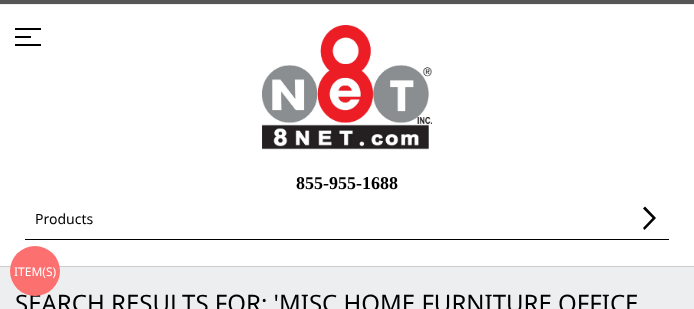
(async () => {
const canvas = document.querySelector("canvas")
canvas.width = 694
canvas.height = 309
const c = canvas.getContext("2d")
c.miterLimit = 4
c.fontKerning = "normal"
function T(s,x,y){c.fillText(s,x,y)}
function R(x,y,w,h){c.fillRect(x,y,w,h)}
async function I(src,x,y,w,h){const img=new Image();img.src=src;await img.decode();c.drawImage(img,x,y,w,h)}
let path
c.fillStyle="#edeeef"
R(0,0,694,309)
c.fillStyle="#ccc"
R(0,266,694,1)
c.fillStyle="#555"
R(0,0,694,4)
c.fillStyle="#fff"
R(0,5,694,261)
c.fillStyle="#000"
R(15,28,26,2)
R(15,44,26,2)
R(15,36,16,2)
await I("1.png",262,25,170,125)
c.font="bold 18px Liberation Serif"
T("855-955-1688",296,189)
R(25,239,644,1)
c.font="14px Noto Sans"
T("Products",35,224)
path = new Path2D("M656 218l-11-11.5l-2 2l9.5 9.5l-9.5 10l1.5 2z")
c.fill(path)
c.font="24px Noto Sans"
T("SEARCH RESULTS FOR: 'MISC HOME FURNITURE OFFICE",15,312)
c.fillStyle="#fc7070"
c.beginPath()
c.arc(35,271,25,0,7)
c.fill()
c.font="12px Noto Sans"
c.fillStyle="#fff"
T("ITEM(S)",14,276)
})()
